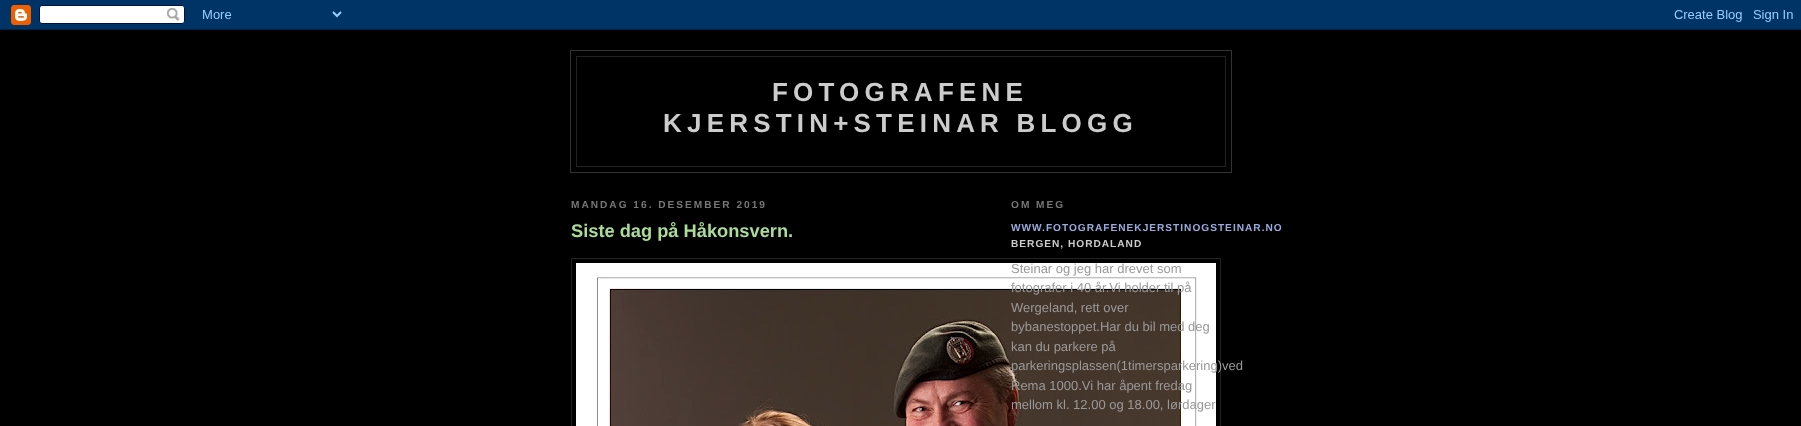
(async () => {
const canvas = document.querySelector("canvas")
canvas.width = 1801
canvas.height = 426
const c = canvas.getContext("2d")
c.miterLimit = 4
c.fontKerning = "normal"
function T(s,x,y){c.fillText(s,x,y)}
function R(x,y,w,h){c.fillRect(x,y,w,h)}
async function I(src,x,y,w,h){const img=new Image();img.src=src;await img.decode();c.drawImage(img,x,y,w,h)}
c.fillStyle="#000"
R(0,0,1801,426)
await I("1.png",0,0,1801,30)
c.strokeStyle="#333"
c.strokeRect(570.5,50.5,661,122)
c.fillStyle="#222"
R(576,56,650,1)
R(1225,56,1,111)
R(576,56,1,90)
c.letterSpacing="5.2px"
c.font="bold 26px Liberation Sans"
c.fillStyle="#ccc"
T("FOTOGRAFENE",772,101)
T("KJERSTIN+STEINAR BLOGG",663,132)
c.fillStyle="#222"
R(576,166,650,1)
R(576,146,1,21)
c.letterSpacing="2px"
c.font="bold 10.15px Liberation Sans"
c.fillStyle="#777"
T("MANDAG 16. DESEMBER 2019",571,208)
c.letterSpacing="0px"
c.font="bold 18.25px Liberation Sans"
c.fillStyle="#ad9"
T("Siste dag på Håkonsvern.",571,237)
c.strokeStyle="#222"
c.strokeRect(571.5,258.5,649,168)
await I("2.png",576,263,640,163)
c.letterSpacing="2px"
c.font="bold 10.15px Liberation Sans"
c.fillStyle="#777"
T("OM MEG",1011,208)
c.letterSpacing="1px"
c.fillStyle="#9ad"
T("WWW.FOTOGRAFENEKJERSTINOGSTEINAR.NO",1011,231)
c.fillStyle="#ccc"
T("BERGEN, HORDALAND",1011,247)
c.letterSpacing="0px"
c.font="13px Liberation Sans"
c.fillStyle="#999"
T("Steinar og jeg har drevet som",1011,273)
T("fotografer i 40 år.Vi holder til på",1011,292)
T("Wergeland, rett over",1011,312)
T("bybanestoppet.Har du bil med deg",1011,331)
T("kan du parkere på",1011,351)
T("parkeringsplassen(1timersparkering)ved",1011,370)
T("Rema 1000.Vi har åpent fredag",1011,390)
T("mellom kl. 12.00 og 18.00, lørdager",1011,409)
})()
